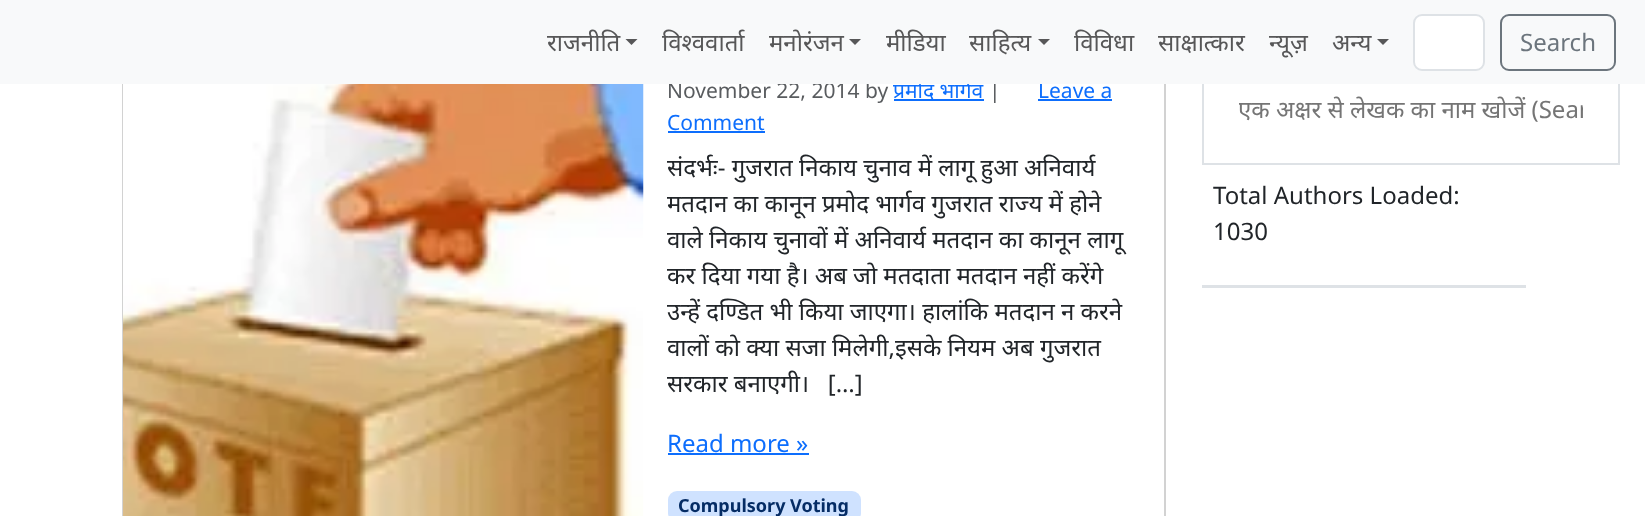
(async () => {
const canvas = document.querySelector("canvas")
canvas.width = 1645
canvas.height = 516
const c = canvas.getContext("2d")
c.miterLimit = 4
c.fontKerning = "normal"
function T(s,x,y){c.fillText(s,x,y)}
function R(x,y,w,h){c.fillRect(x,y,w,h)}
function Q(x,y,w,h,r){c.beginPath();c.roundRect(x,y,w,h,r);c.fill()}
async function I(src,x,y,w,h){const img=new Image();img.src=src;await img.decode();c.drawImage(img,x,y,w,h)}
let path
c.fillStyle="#fff"
R(0,0,1645,516)
c.strokeStyle="#d2d2d2"
c.lineWidth=2
c.strokeRect(123,-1,1042,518)
c.font="21px Noto Sans"
c.fillStyle="#595c5f"
T("November 22, 2014 by",667,98)
c.fillStyle="#0d6efd"
R(894,99,90,2)
T("प्रमोद भार्गव",893,98)
c.fillStyle="#595c5f"
T("|",989,98)
c.fillStyle="#0d6efd"
T("Leave a",1038,98)
c.strokeStyle="#dee2e6"
c.strokeRect(1203,55,416,109)
c.fillStyle="#f8f9fa"
R(0,0,1645,84)
c.font="24px Noto Sans"
c.fillStyle="#575758"
T("राजनीति",547,51)
path = new Path2D("M625.5 39h12l-6 6z")
c.fill(path)
T("विश्ववार्ता",662,51)
T("मनोरंजन",769,51)
path = new Path2D("M849 39h12l-6 6z")
c.fill(path)
T("मीडिया",886,51)
T("साहित्‍य",969,51)
path = new Path2D("M1038 39h12l-6 6z")
c.fill(path)
T("विविधा",1074,51)
T("साक्षात्‍कार",1158,51)
T("न्यूज़",1269,51)
T("अन्य",1332,51)
path = new Path2D("M1377 39h12l-6 6z")
c.fill(path)
c.fillStyle="#fff"
c.beginPath()
c.roundRect(1414,15,70,55,8)
c.fill()
c.stroke()
c.beginPath()
c.roundRect(1501,15,114,55,8)
c.strokeStyle="#6c757d"
c.stroke()
c.fillStyle="#6c757d"
T("Search",1520,51)
await I("1.png",123,84,521,432)
c.fillStyle="#0d6efd"
R(1038,99,74,2)
c.font="21px Noto Sans"
T("Comment",667,130)
R(668,131,97,2)
c.font="24px Noto Sans"
c.fillStyle="#212529"
T("संदर्भः- गुजरात निकाय चुनाव में लागू हुआ अनिवार्य",667,176)
T("मतदान का कानून प्रमोद भार्गव गुजरात राज्य में होने",667,212)
T("वाले निकाय चुनावों में अनिवार्य मतदान का कानून लागू",667,248)
T("कर दिया गया है। अब जो मतदाता मतदान नहीं करेंगे",667,284)
T("उन्हें दण्डित भी किया जाएगा। हालांकि मतदान न करने",667,320)
T("वालों को क्या सजा मिलेगी,इसके नियम अब गुजरात",667,356)
T("सरकार बनाएगी।   […]",667,392)
c.fillStyle="#0d6efd"
T("Read more »",667,452)
R(668,453,141,2)
c.fillStyle="#cfe2ff"
Q(668,491,193,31,9)
c.font="bold 18px Noto Sans"
c.fillStyle="#052c65"
T("Compulsory Voting",678,512)
c.save()
c.beginPath()
c.rect(1239,93,344,33)
c.clip()
c.font="24px Noto Sans"
c.fillStyle="#757575"
T("एक अक्षर से लेखक का नाम खोजें (Sear",1238,118)
c.restore()
c.font="24px Noto Sans"
c.fillStyle="#212529"
T("Total Authors Loaded:",1213,204)
T("1030",1213,240)
c.fillStyle="#dee2e6"
R(1202,285,324,3)
})()
